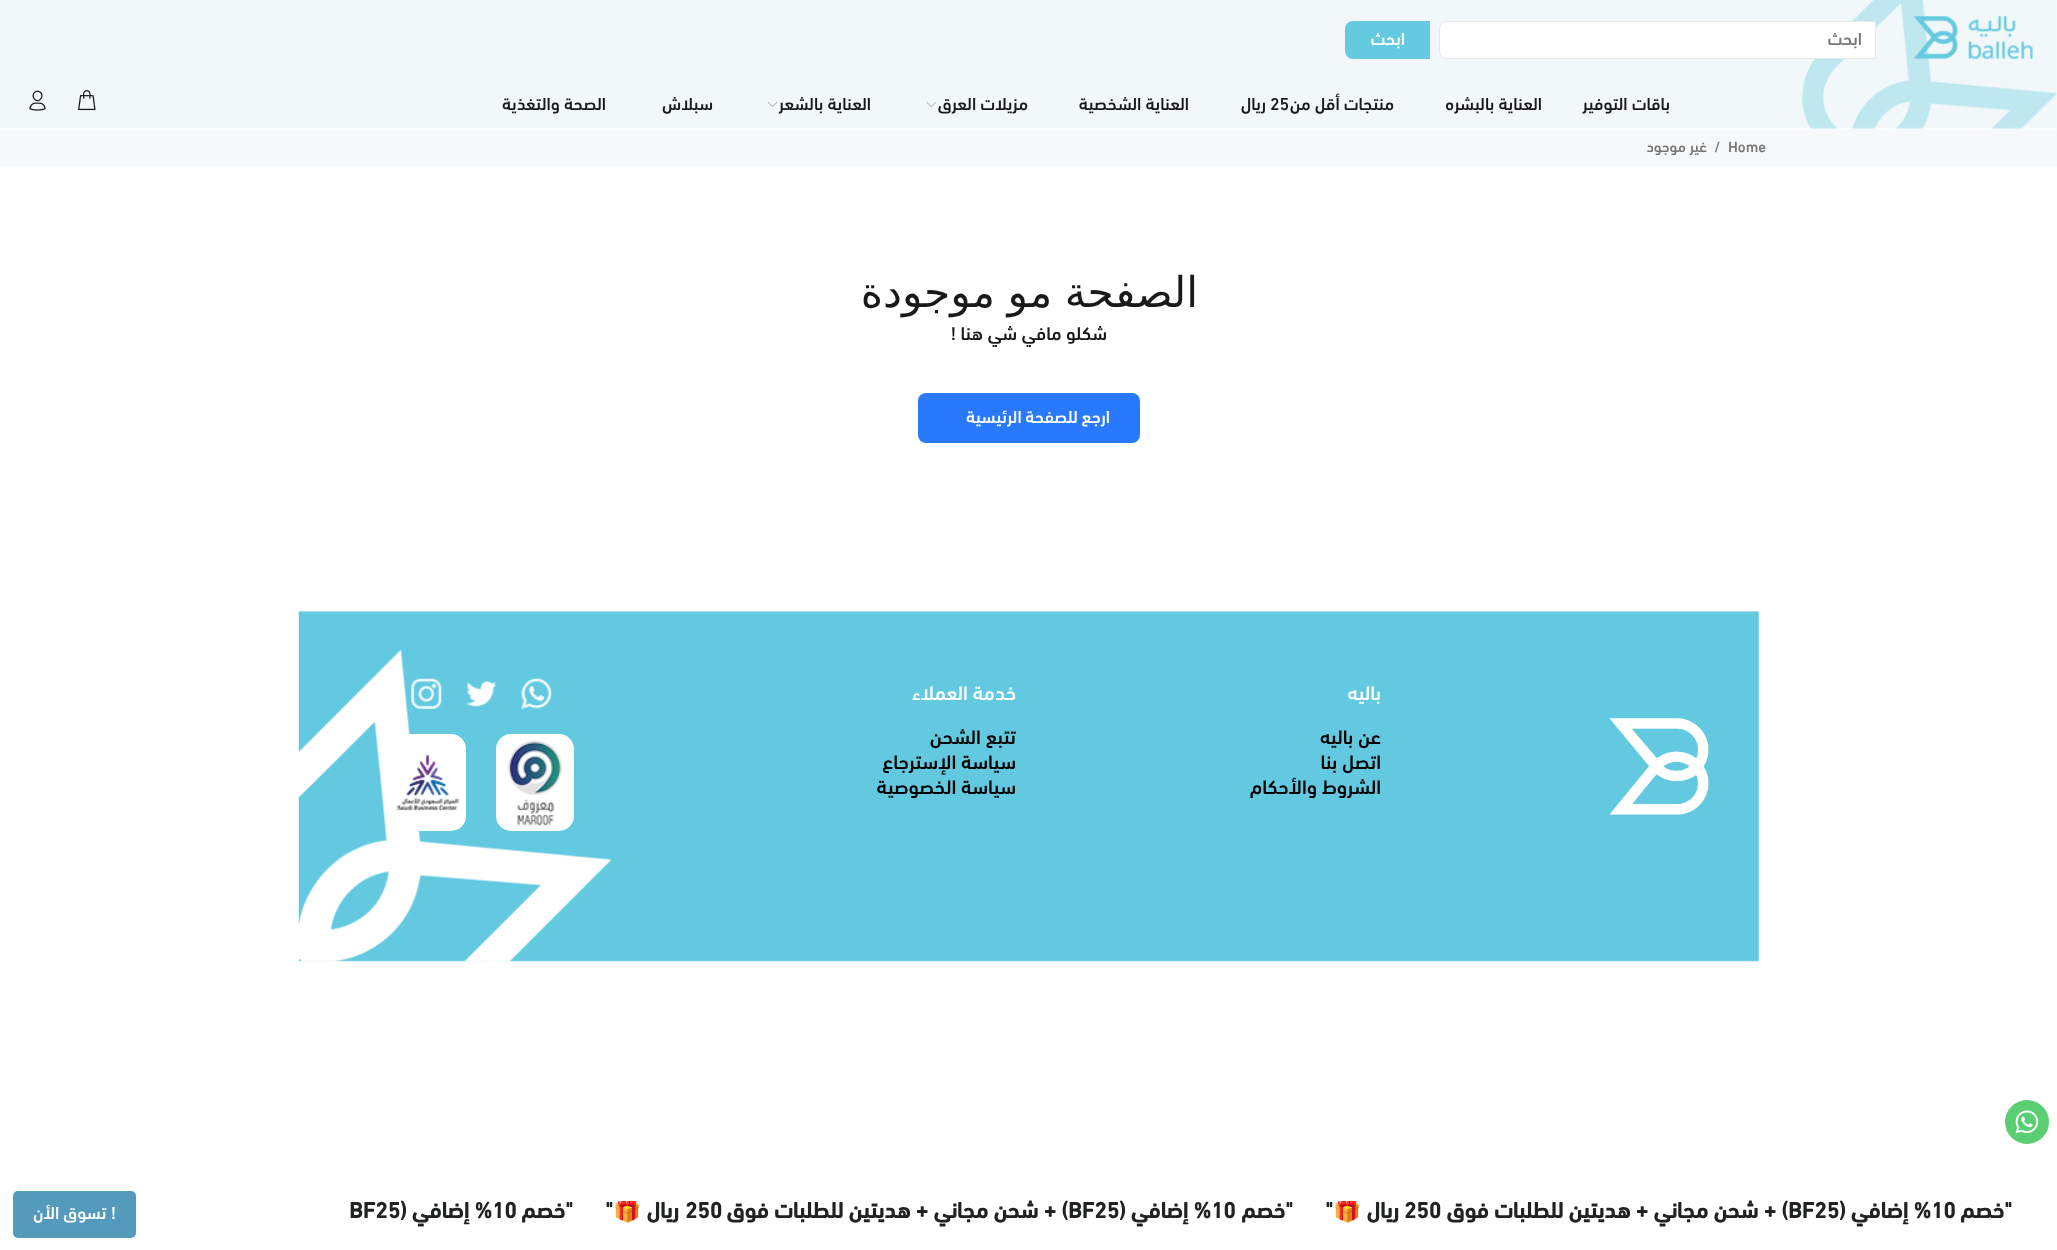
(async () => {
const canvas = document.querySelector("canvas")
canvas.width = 2057
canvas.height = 1250
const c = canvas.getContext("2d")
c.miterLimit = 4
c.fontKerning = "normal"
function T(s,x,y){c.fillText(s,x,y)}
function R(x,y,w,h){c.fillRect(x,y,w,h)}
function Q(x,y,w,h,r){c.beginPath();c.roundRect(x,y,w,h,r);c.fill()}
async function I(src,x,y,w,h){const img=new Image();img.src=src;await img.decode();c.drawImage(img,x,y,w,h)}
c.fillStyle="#fff"
R(0,0,2057,1250)
await I("1.png",0,0,2057,129)
await I("2.png",1913,16,120,43)
c.beginPath()
c.roundRect(1439.5,21.5,436,37,[7.5,0,0,7.5])
c.fill()
c.strokeStyle="#e9e7e7"
c.stroke()
c.direction="rtl"
c.font="500 17.5px 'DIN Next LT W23'"
c.fillStyle="#777"
T("ابحث",1862,45)
c.fillStyle="#64cae0"
c.beginPath()
c.roundRect(1345,21,85,38,[8,0,0,8])
c.fill()
c.fillStyle="#fff"
T("ابحث",1405,45)
c.fillStyle="#191919"
T("باقات التوفير",1670,110)
T("العناية بالبشره",1542,110)
T("منتجات أقل من",1394,110)
c.direction="ltr"
T("25",1270,110)
c.direction="rtl"
T("ريال",1266,110)
T("العناية الشخصية",1189,110)
T("مزيلات العرق",1028,110)
await I("3.png",926,102,10,5)
T("العناية بالشعر",871,110)
await I("4.png",767,102,11,5)
T("سبلاش",713,110)
T("الصحة والتغذية",606,110)
await I("5.png",78,90,18,21)
await I("6.png",29,90,17,21)
c.fillStyle="#f7f8fa"
R(0,129,2057,37)
c.direction="ltr"
c.font="500 15px 'DIN Next LT W23'"
c.fillStyle="#777"
T("Home",1728,152)
T("/",1714,152)
c.direction="rtl"
T("غير موجود",1707,152)
c.wordSpacing="-1px"
c.font="42.5px DejaVu Sans"
c.fillStyle="#191919"
T("الصفحة مو موجودة",1198,307)
c.wordSpacing="0px"
c.font="500 18.75px 'DIN Next LT W23'"
T("شكلو مافي شي هنا !",1107,340)
c.fillStyle="#2879fe"
Q(918,393,222,50,8)
c.letterSpacing="0.5px"
c.wordSpacing="-1px"
c.font="500 17.5px 'DIN Next LT W23'"
c.fillStyle="#fff"
T("ارجع للصفحة الرئيسية",1110,423)
await I("7.png",298,611,1461,351)
await I("8.png",1609,718,100,97)
c.letterSpacing="0px"
c.wordSpacing="0px"
c.font="500 20px 'DIN Next LT W23'"
T("باليه",1381,700)
c.fillStyle="#000"
T("عن باليه",1381,744)
T("اتصل بنا",1381,769)
T("الشروط والأحكام",1381,794)
c.fillStyle="#fff"
T("خدمة العملاء",1016,700)
c.fillStyle="#000"
T("تتبع الشحن",1016,744)
T("سياسة الإسترجاع",1016,769)
T("سياسة الخصوصية",1016,794)
await I("9.png",521,678,31,31)
await I("10.png",466,681,31,26)
await I("11.png",411,678,31,31)
c.fillStyle="#fff"
Q(496,734,78,97,15)
await I("12.png",507,740,56,86)
Q(389,734,77,97,15)
await I("13.png",396,754,63,57)
c.fillStyle="#59ce72"
c.beginPath()
c.arc(2027,1122,22,0,7)
c.fill()
await I("14.png",2015,1110,24,24)
c.font="bold 22.5px 'DIN Next LT W23'"
c.fillStyle="#202223"
T("\"خصم",2012,1218)
c.direction="ltr"
T("10",1931,1218)
c.direction="rtl"
T("% إضافي (",1931,1218)
c.direction="ltr"
T("BF25",1788,1218)
c.direction="rtl"
T(") + شحن مجاني + هديتين للطلبات فوق",1788,1218)
c.direction="ltr"
T("250",1404,1218)
c.direction="rtl"
T("ريال",1399,1218)
c.save()
c.beginPath()
c.rect(169,1201,1876,27)
c.clip()
c.font="bold 22.5px Noto Color Emoji"
T("🎁",1361,1218)
c.restore()
T("\"",1333,1218)
T("\"خصم",1293,1218)
c.direction="ltr"
T("10",1211,1218)
c.direction="rtl"
T("% إضافي (",1211,1218)
c.direction="ltr"
T("BF25",1068,1218)
c.direction="rtl"
T(") + شحن مجاني + هديتين للطلبات فوق",1068,1218)
c.direction="ltr"
T("250",685,1218)
c.direction="rtl"
T("ريال",679,1218)
c.save()
c.beginPath()
c.rect(169,1201,1876,27)
c.clip()
c.font="bold 22.5px Noto Color Emoji"
T("🎁",641,1218)
c.restore()
T("\"",613,1218)
T("\"خصم",573,1218)
c.direction="ltr"
T("10",492,1218)
c.direction="rtl"
T("% إضافي (",492,1218)
c.direction="ltr"
T("BF25",349,1218)
c.fillStyle="#549abd"
Q(13,1191,123,47,5)
c.direction="rtl"
c.font="500 17.5px 'DIN Next LT W23'"
c.fillStyle="#fff"
T("! تسوق الأن",116,1219)
})()
